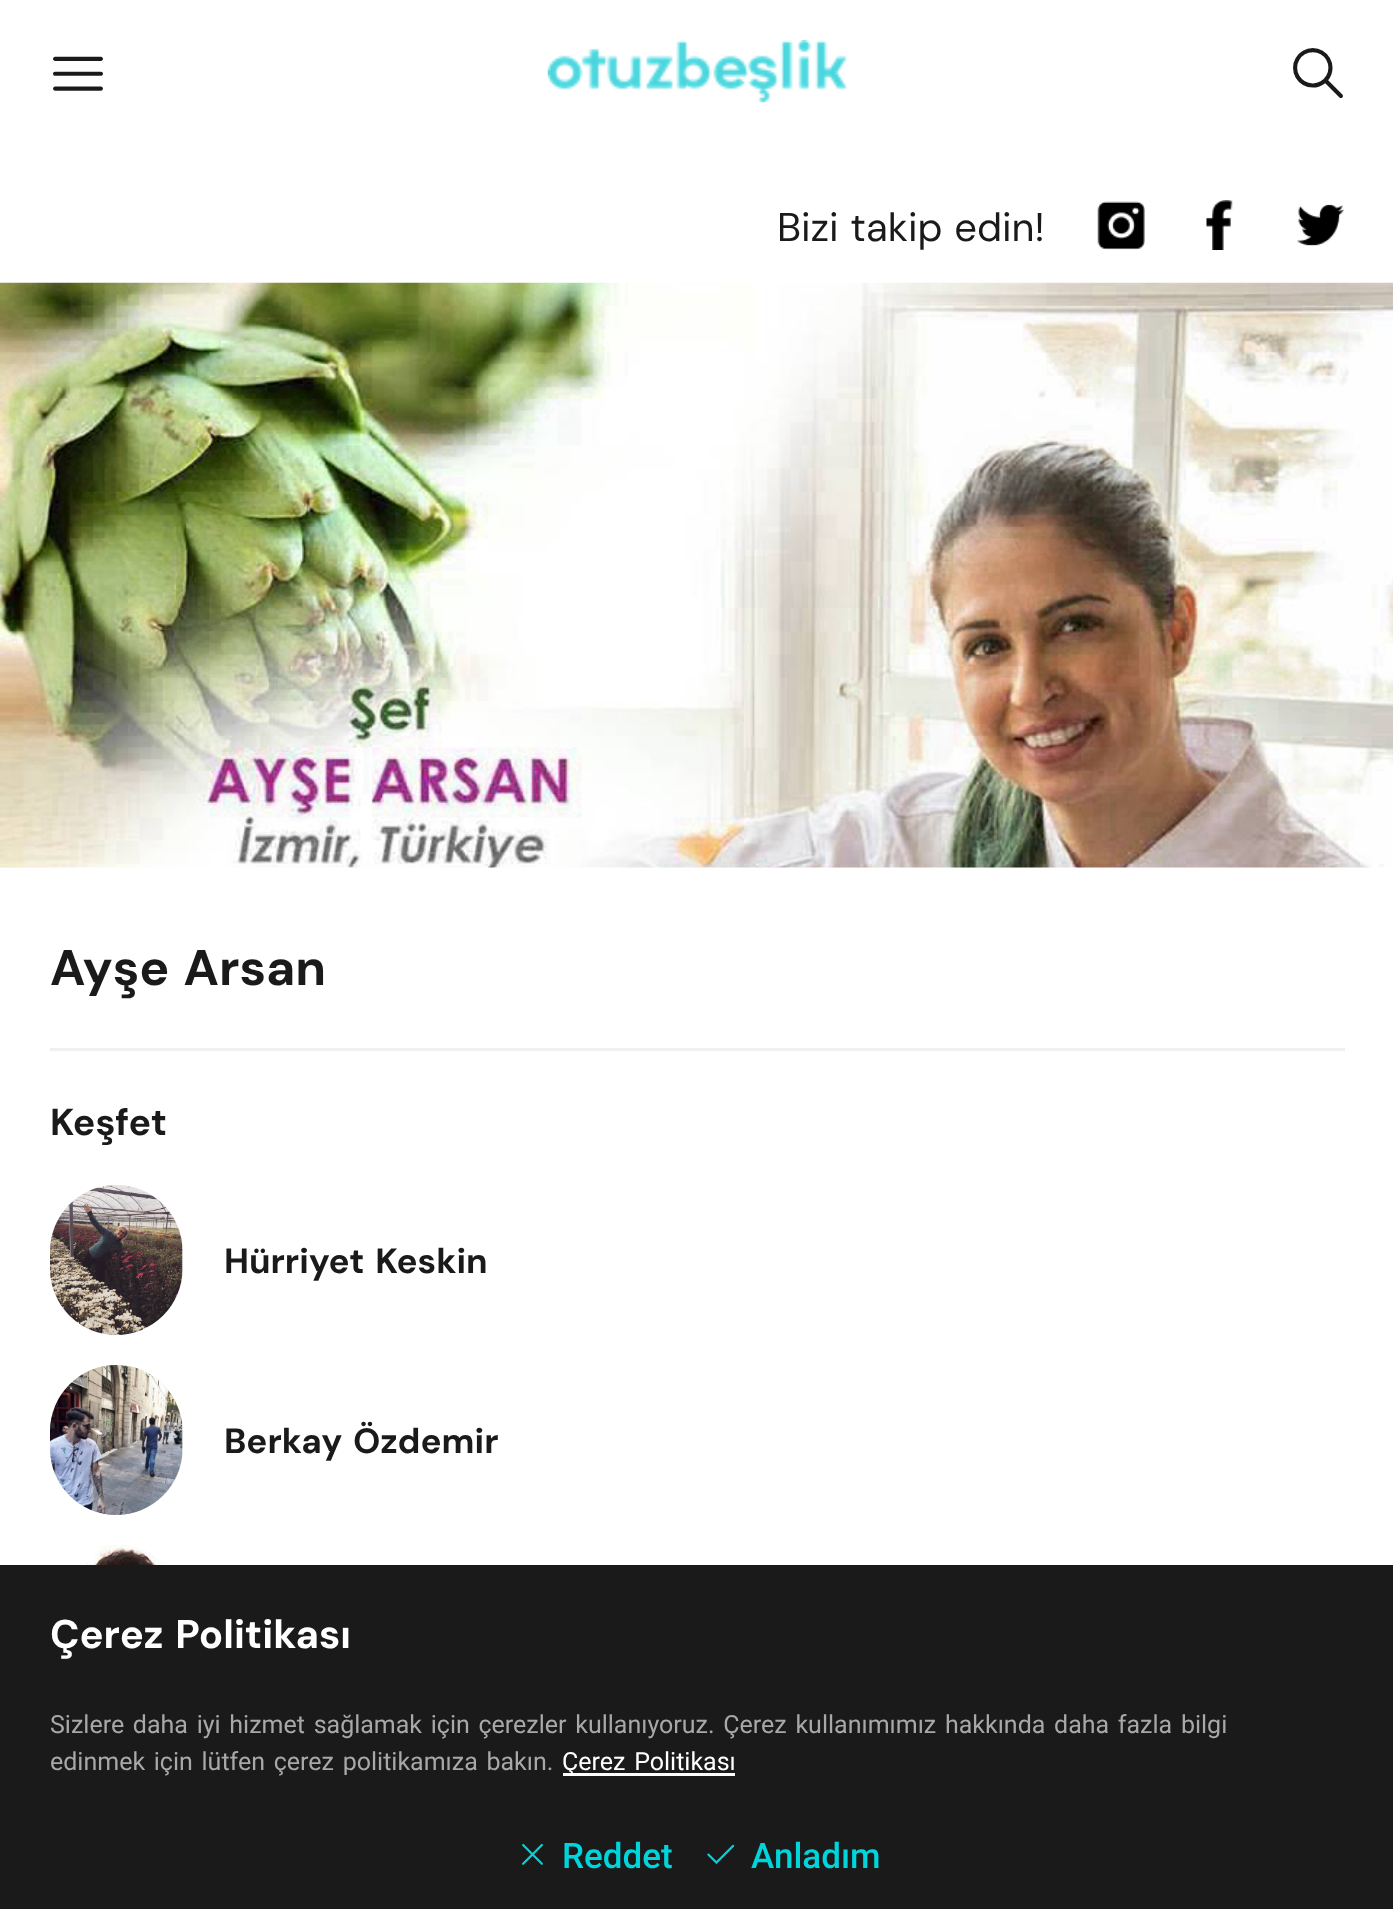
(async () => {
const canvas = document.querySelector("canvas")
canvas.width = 1393
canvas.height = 1909
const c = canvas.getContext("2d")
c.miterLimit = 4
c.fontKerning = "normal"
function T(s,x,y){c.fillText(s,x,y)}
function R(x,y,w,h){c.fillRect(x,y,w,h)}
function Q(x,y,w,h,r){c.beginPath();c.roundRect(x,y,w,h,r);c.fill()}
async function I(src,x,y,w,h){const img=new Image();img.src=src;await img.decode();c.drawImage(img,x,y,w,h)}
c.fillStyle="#fff"
R(0,0,1393,1909)
c.font="50px 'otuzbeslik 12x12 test'"
c.fillStyle="#1a1a1a"
T("'",53,98)
await I("1.png",547,40,301,63)
T("A",1293,98)
c.wordSpacing="1px"
c.font="40px DM Sans"
T("Bizi takip edin!",777,241)
await I("2.png",1097,201,48,49)
await I("3.png",1206,200,27,50)
await I("4.png",1297,204,47,42)
await I("5.png",0,282,1393,586)
c.wordSpacing="2.5px"
c.font="bold 50px DM Sans"
T("Ayşe Arsan",50,985)
c.fillStyle="#f0f0f0"
R(50,1048,1295,3)
c.wordSpacing="0px"
c.font="bold 37.5px DM Sans"
c.fillStyle="#1a1a1a"
T("Keşfet",50,1135)
c.fillStyle="#f0f0f0"
Q(50,1185,133,150,66.5)
await I("6.png",50,1185,133,150)
c.wordSpacing="2.5px"
c.font="bold 35px DM Sans"
c.fillStyle="#1a1a1a"
T("Hürriyet Keskin",224,1273)
c.fillStyle="#f0f0f0"
Q(50,1365,133,150,66.5)
await I("7.png",50,1365,133,150)
c.fillStyle="#1a1a1a"
T("Berkay Özdemir",224,1453)
c.fillStyle="#f0f0f0"
Q(50,1545,133,150,66.5)
await I("8.png",69,1545,95,20)
c.fillStyle="#1a1a1a"
R(0,1565,1393,344)
c.font="bold 40px DM Sans"
c.fillStyle="#fff"
T("Çerez Politikası",50,1648)
c.font="25px Roboto"
c.fillStyle="#a8a8a8"
T("Sizlere daha iyi hizmet sağlamak için çerezler kullanıyoruz. Çerez kullanımımız hakkında daha fazla bilgi",50,1733)
T("edinmek için lütfen çerez politikamıza bakın.",50,1770)
c.fillStyle="#fff"
R(563,1773,172,3)
T("Çerez Politikası",562,1770)
await I("9.png",522,1843,21,22)
c.wordSpacing="0px"
c.font="500 35px Roboto"
c.fillStyle="#00d5db"
T("Reddet",562,1868)
await I("10.png",707,1844,28,20)
T("Anladım",751,1868)
})()
